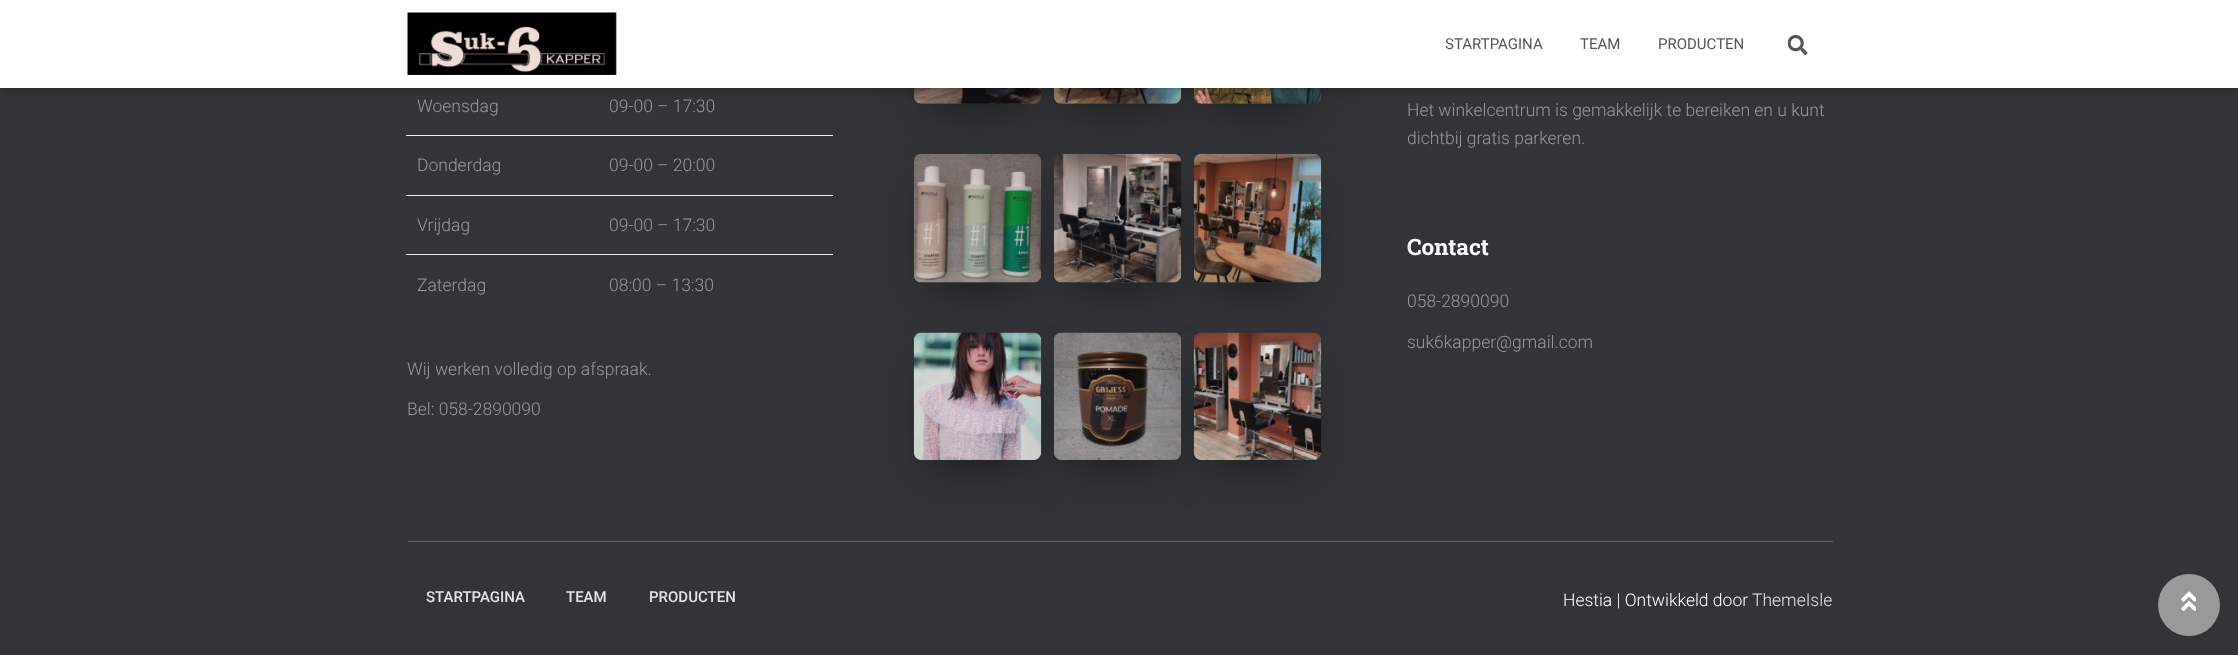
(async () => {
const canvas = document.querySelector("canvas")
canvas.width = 2238
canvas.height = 655
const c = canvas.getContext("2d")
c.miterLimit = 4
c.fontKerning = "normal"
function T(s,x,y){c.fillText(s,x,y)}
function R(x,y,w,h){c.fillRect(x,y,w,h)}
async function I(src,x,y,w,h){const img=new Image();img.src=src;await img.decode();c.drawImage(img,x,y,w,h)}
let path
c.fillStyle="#323437"
R(0,0,2238,655)
c.save()
path = new Path2D("M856 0h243v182h-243zm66-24h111c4.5 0 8 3.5 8 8v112c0 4.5-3.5 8-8 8h-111c-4.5 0-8-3.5-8-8v-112c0-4.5 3.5-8 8-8z")
c.clip(path,"evenodd")
c.fillStyle="#0707088f"
c.filter="blur(24px)"
c.beginPath()
c.rect(929,11,97,98)
c.fill()
c.filter="none"
c.restore()
await I("3.png",913,88,128,16)
c.save()
path = new Path2D("M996 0h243v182h-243zm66-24h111c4.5 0 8 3.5 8 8v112c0 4.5-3.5 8-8 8h-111c-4.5 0-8-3.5-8-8v-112c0-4.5 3.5-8 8-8z")
c.clip(path,"evenodd")
c.fillStyle="#0000007a"
c.filter="blur(24px)"
c.beginPath()
c.rect(1069,11,97,98)
c.fill()
c.filter="none"
c.restore()
await I("4.png",1053,88,129,16)
c.save()
path = new Path2D("M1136 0h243v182h-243zm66-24h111c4.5 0 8 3.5 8 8v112c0 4.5-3.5 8-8 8h-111c-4.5 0-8-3.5-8-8v-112c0-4.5 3.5-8 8-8z")
c.clip(path,"evenodd")
c.fillStyle="#0000007a"
c.filter="blur(24px)"
c.beginPath()
c.rect(1209,11,97,98)
c.fill()
c.filter="none"
c.restore()
await I("5.png",1193,88,129,16)
c.fillStyle="#0000001a"
c.filter="blur(3px)"
c.beginPath()
c.rect(3,8,2233,82)
c.fill()
c.filter="none"
c.fillStyle="#0000001f"
c.filter="blur(6px)"
c.beginPath()
c.rect(0,1,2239,88)
c.fill()
c.filter="none"
c.fillStyle="#0000006b"
c.filter="blur(6px)"
c.beginPath()
c.rect(8,9,2223,72)
c.fill()
c.filter="none"
c.fillStyle="#fff"
R(0,0,2238,88)
await I("1.png",407,12,210,63)
c.font="15px Roboto"
c.fillStyle="#555"
T("STARTPAGINA",1445,49)
T("TEAM",1580,49)
T("PRODUCTEN",1658,49)
await I("2.png",1788,35,20,20)
c.fillStyle="#eee"
R(406,135,427,1)
c.font="300 17.5px Roboto"
c.fillStyle="#999"
T("Woensdag",417,112)
T("09-00 – 17:30",609,112)
c.fillStyle="#eee"
R(406,195,427,1)
c.fillStyle="#999"
T("Donderdag",417,171)
T("09-00 – 20:00",609,171)
c.fillStyle="#eee"
R(406,254,427,1)
c.fillStyle="#999"
T("Vrijdag",417,231)
T("09-00 – 17:30",609,231)
T("Zaterdag",417,291)
T("08:00 – 13:30",609,291)
T("Wij werken volledig op afspraak.",407,375)
T("Bel: 058-2890090",407,415)
c.save()
path = new Path2D("M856 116h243v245h-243zm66 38h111c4.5 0 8 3.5 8 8v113c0 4.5-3.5 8-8 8h-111c-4.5 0-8-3.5-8-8v-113c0-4.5 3.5-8 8-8z")
c.clip(path,"evenodd")
c.fillStyle="#0707088f"
c.filter="blur(24px)"
c.beginPath()
c.rect(929,189,97,99)
c.fill()
c.filter="none"
c.restore()
await I("6.png",913,153,129,130)
c.save()
path = new Path2D("M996 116h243v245h-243zm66 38h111c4.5 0 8 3.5 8 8v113c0 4.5-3.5 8-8 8h-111c-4.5 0-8-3.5-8-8v-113c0-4.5 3.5-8 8-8z")
c.clip(path,"evenodd")
c.fillStyle="#0000007a"
c.filter="blur(24px)"
c.beginPath()
c.rect(1069,189,97,99)
c.fill()
c.filter="none"
c.restore()
await I("7.png",1053,153,129,130)
c.save()
path = new Path2D("M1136 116h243v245h-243zm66 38h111c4.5 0 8 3.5 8 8v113c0 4.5-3.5 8-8 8h-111c-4.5 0-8-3.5-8-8v-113c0-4.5 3.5-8 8-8z")
c.clip(path,"evenodd")
c.fillStyle="#0000007a"
c.filter="blur(24px)"
c.beginPath()
c.rect(1209,189,97,99)
c.fill()
c.filter="none"
c.restore()
await I("8.png",1193,153,129,130)
c.save()
path = new Path2D("M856 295h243v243h-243zm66 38h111c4.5 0 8 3.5 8 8v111c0 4.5-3.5 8-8 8h-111c-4.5 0-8-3.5-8-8v-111c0-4.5 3.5-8 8-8z")
c.clip(path,"evenodd")
c.fillStyle="#0707088f"
c.filter="blur(24px)"
c.beginPath()
c.rect(929,368,97,97)
c.fill()
c.filter="none"
c.restore()
await I("9.png",913,332,129,128)
c.save()
path = new Path2D("M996 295h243v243h-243zm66 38h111c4.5 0 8 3.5 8 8v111c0 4.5-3.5 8-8 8h-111c-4.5 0-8-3.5-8-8v-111c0-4.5 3.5-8 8-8z")
c.clip(path,"evenodd")
c.fillStyle="#0000007a"
c.filter="blur(24px)"
c.beginPath()
c.rect(1069,368,97,97)
c.fill()
c.filter="none"
c.restore()
await I("10.png",1053,332,129,128)
c.save()
path = new Path2D("M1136 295h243v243h-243zm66 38h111c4.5 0 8 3.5 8 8v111c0 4.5-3.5 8-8 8h-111c-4.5 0-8-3.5-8-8v-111c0-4.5 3.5-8 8-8z")
c.clip(path,"evenodd")
c.fillStyle="#0000007a"
c.filter="blur(24px)"
c.beginPath()
c.rect(1209,368,97,97)
c.fill()
c.filter="none"
c.restore()
await I("11.png",1193,332,129,128)
T("Het winkelcentrum is gemakkelijk te bereiken en u kunt",1407,116)
T("dichtbij gratis parkeren.",1407,144)
c.font="bold 22.5px Roboto Slab"
c.fillStyle="#fff"
T("Contact",1407,255)
c.font="300 17.5px Roboto"
c.fillStyle="#999"
T("058-2890090",1407,307)
T("suk6kapper@gmail.com",1407,348)
c.fillStyle="#5b5d5f"
R(408,541,1425,1)
c.font="500 15px Roboto"
c.fillStyle="#e2e3e3"
T("STARTPAGINA",426,602)
T("TEAM",566,602)
T("PRODUCTEN",649,602)
c.font="300 17.5px Roboto"
c.fillStyle="#fff"
T("Hestia | Ontwikkeld door",1563,606)
c.fillStyle="#e2e3e3"
T("ThemeIsle",1752,606)
c.fillStyle="#999"
c.beginPath()
c.arc(2189,605,31,0,7)
c.fill()
await I("12.png",2181,591,15,20)
})()
